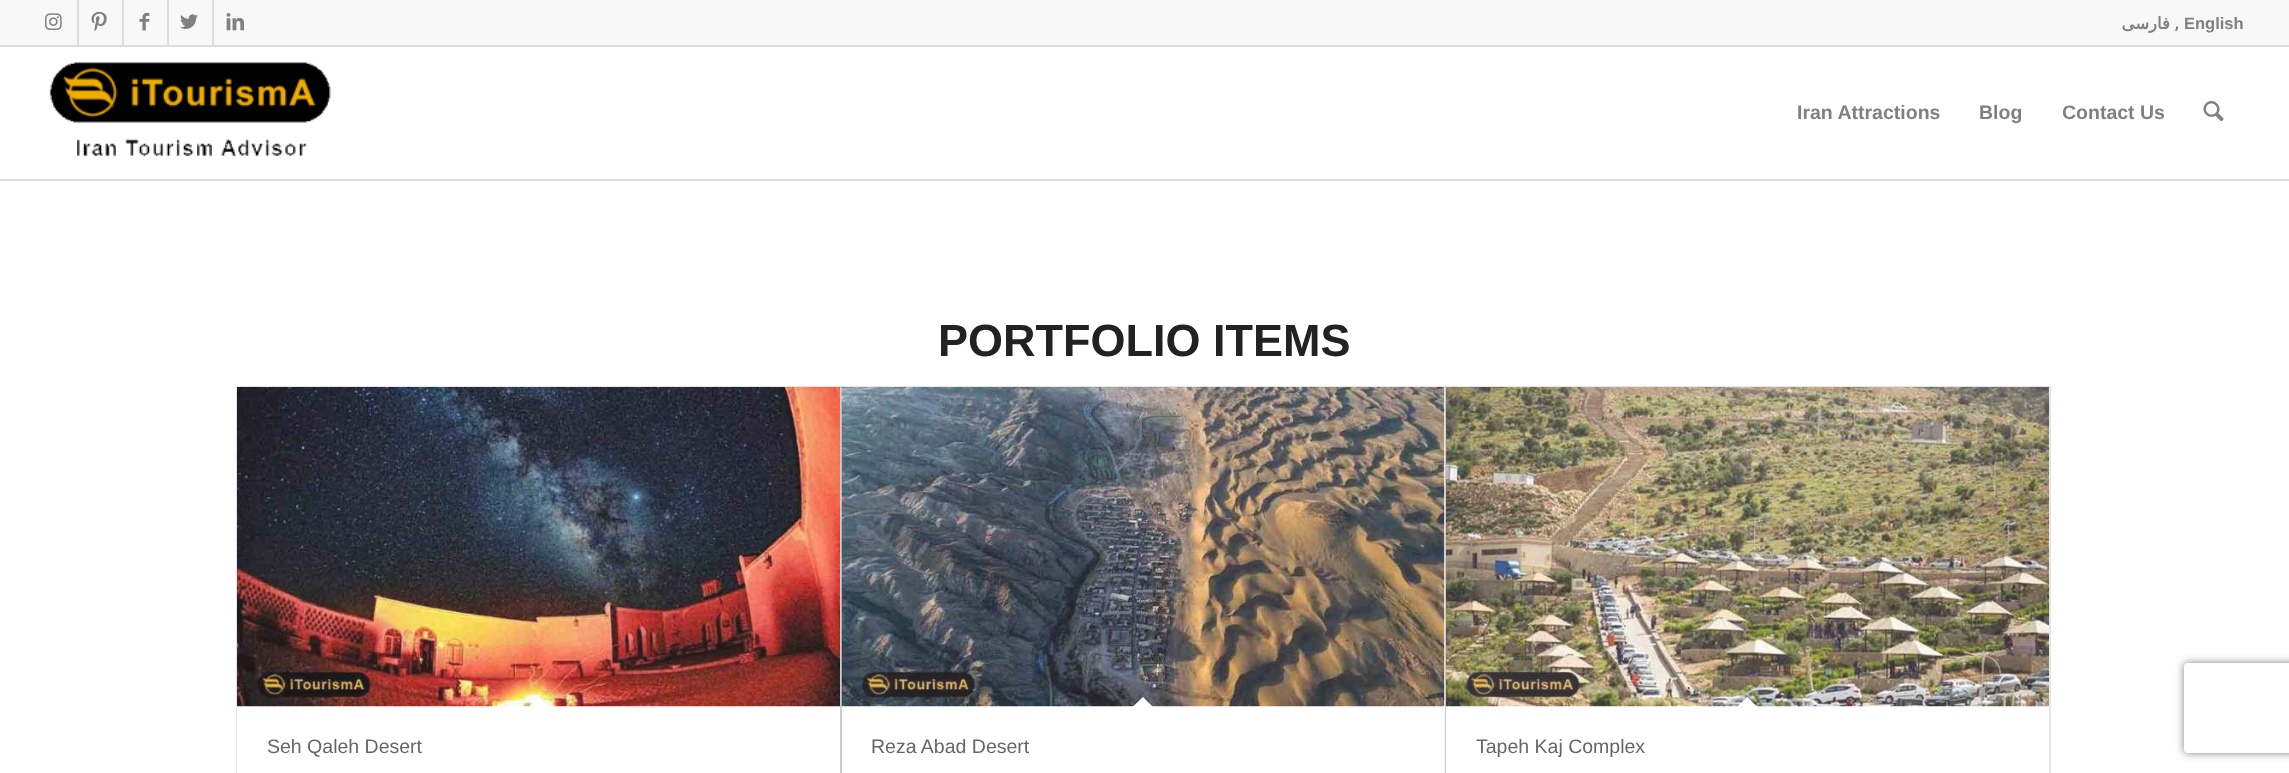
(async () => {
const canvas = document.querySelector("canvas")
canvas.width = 2289
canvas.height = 773
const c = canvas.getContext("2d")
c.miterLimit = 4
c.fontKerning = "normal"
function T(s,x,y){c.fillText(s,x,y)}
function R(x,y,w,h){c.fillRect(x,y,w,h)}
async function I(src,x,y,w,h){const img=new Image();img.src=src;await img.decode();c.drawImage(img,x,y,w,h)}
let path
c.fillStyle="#fff"
R(0,0,2289,773)
c.fillStyle="#f8f8f8"
R(0,0,2289,45)
c.fillStyle="#ddd"
R(0,45,2289,2)
R(77,0,2,45)
await I("1.png",45,13,17,18)
R(122,0,2,45)
await I("2.png",91,11,16,21)
R(167,0,2,45)
await I("3.png",139,12,11,19)
R(212,0,2,45)
await I("4.png",180,14,18,15)
await I("5.png",226,13,19,18)
c.direction="rtl"
c.font="bold 16.5px DejaVu Sans"
c.fillStyle="#808080"
T("فارسی",2170,29)
c.direction="ltr"
T(",",2174,29)
c.font="bold 16.5px Liberation Sans"
T("English",2184,29)
c.fillStyle="#ddd"
R(0,179,2289,2)
await I("6.png",49,62,282,94)
c.font="bold 19.5px Liberation Sans"
c.fillStyle="#808080"
T("Iran Attractions",1797,119)
T("Blog",1979,119)
T("Contact Us",2062,119)
await I("7.png",2203,101,21,21)
c.font="bold 45px Liberation Sans"
c.fillStyle="#222"
T("PORTFOLIO ITEMS",938,356)
c.strokeStyle="#e6e6e6"
c.lineWidth=2
c.strokeRect(237,387,604,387)
c.fillStyle="#fff"
R(237,387,603,386)
await I("8.png",237,387,603,320)
path = new Path2D("M538.5 697l10.5 10.5l-10.5 10.5l-10.5-10.5z")
c.fill(path)
c.font="19.5px Liberation Sans"
c.fillStyle="#666"
T("Seh Qaleh Desert",267,753)
c.strokeStyle="#0000001a"
c.strokeRect(841,387,604,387)
c.fillStyle="#fff"
R(842,387,603,386)
await I("9.png",841,387,604,320)
path = new Path2D("M1143 697l10.5 10.5l-10.5 10.5l-11-10.5z")
c.fill(path)
c.fillStyle="#666"
T("Reza Abad Desert",871,753)
c.strokeRect(1446,387,604,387)
c.fillStyle="#fff"
R(1446,387,603,386)
await I("10.png",1446,387,603,320)
path = new Path2D("M1747 697l11 10.5l-11 10.5l-10.5-10.5z")
c.fill(path)
c.fillStyle="#666"
T("Tapeh Kaj Complex",1476,753)
c.save()
path = new Path2D("M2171 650h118v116h-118zm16 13h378c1.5 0 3 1.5 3 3v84c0 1.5-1.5 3-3 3h-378c-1.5 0-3-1.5-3-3v-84c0-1.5 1.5-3 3-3z")
c.clip(path,"evenodd")
c.fillStyle="#808080"
c.filter="blur(4px)"
c.beginPath()
c.roundRect(2184,663,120,90,3)
c.fill()
c.filter="none"
c.restore()
})()
